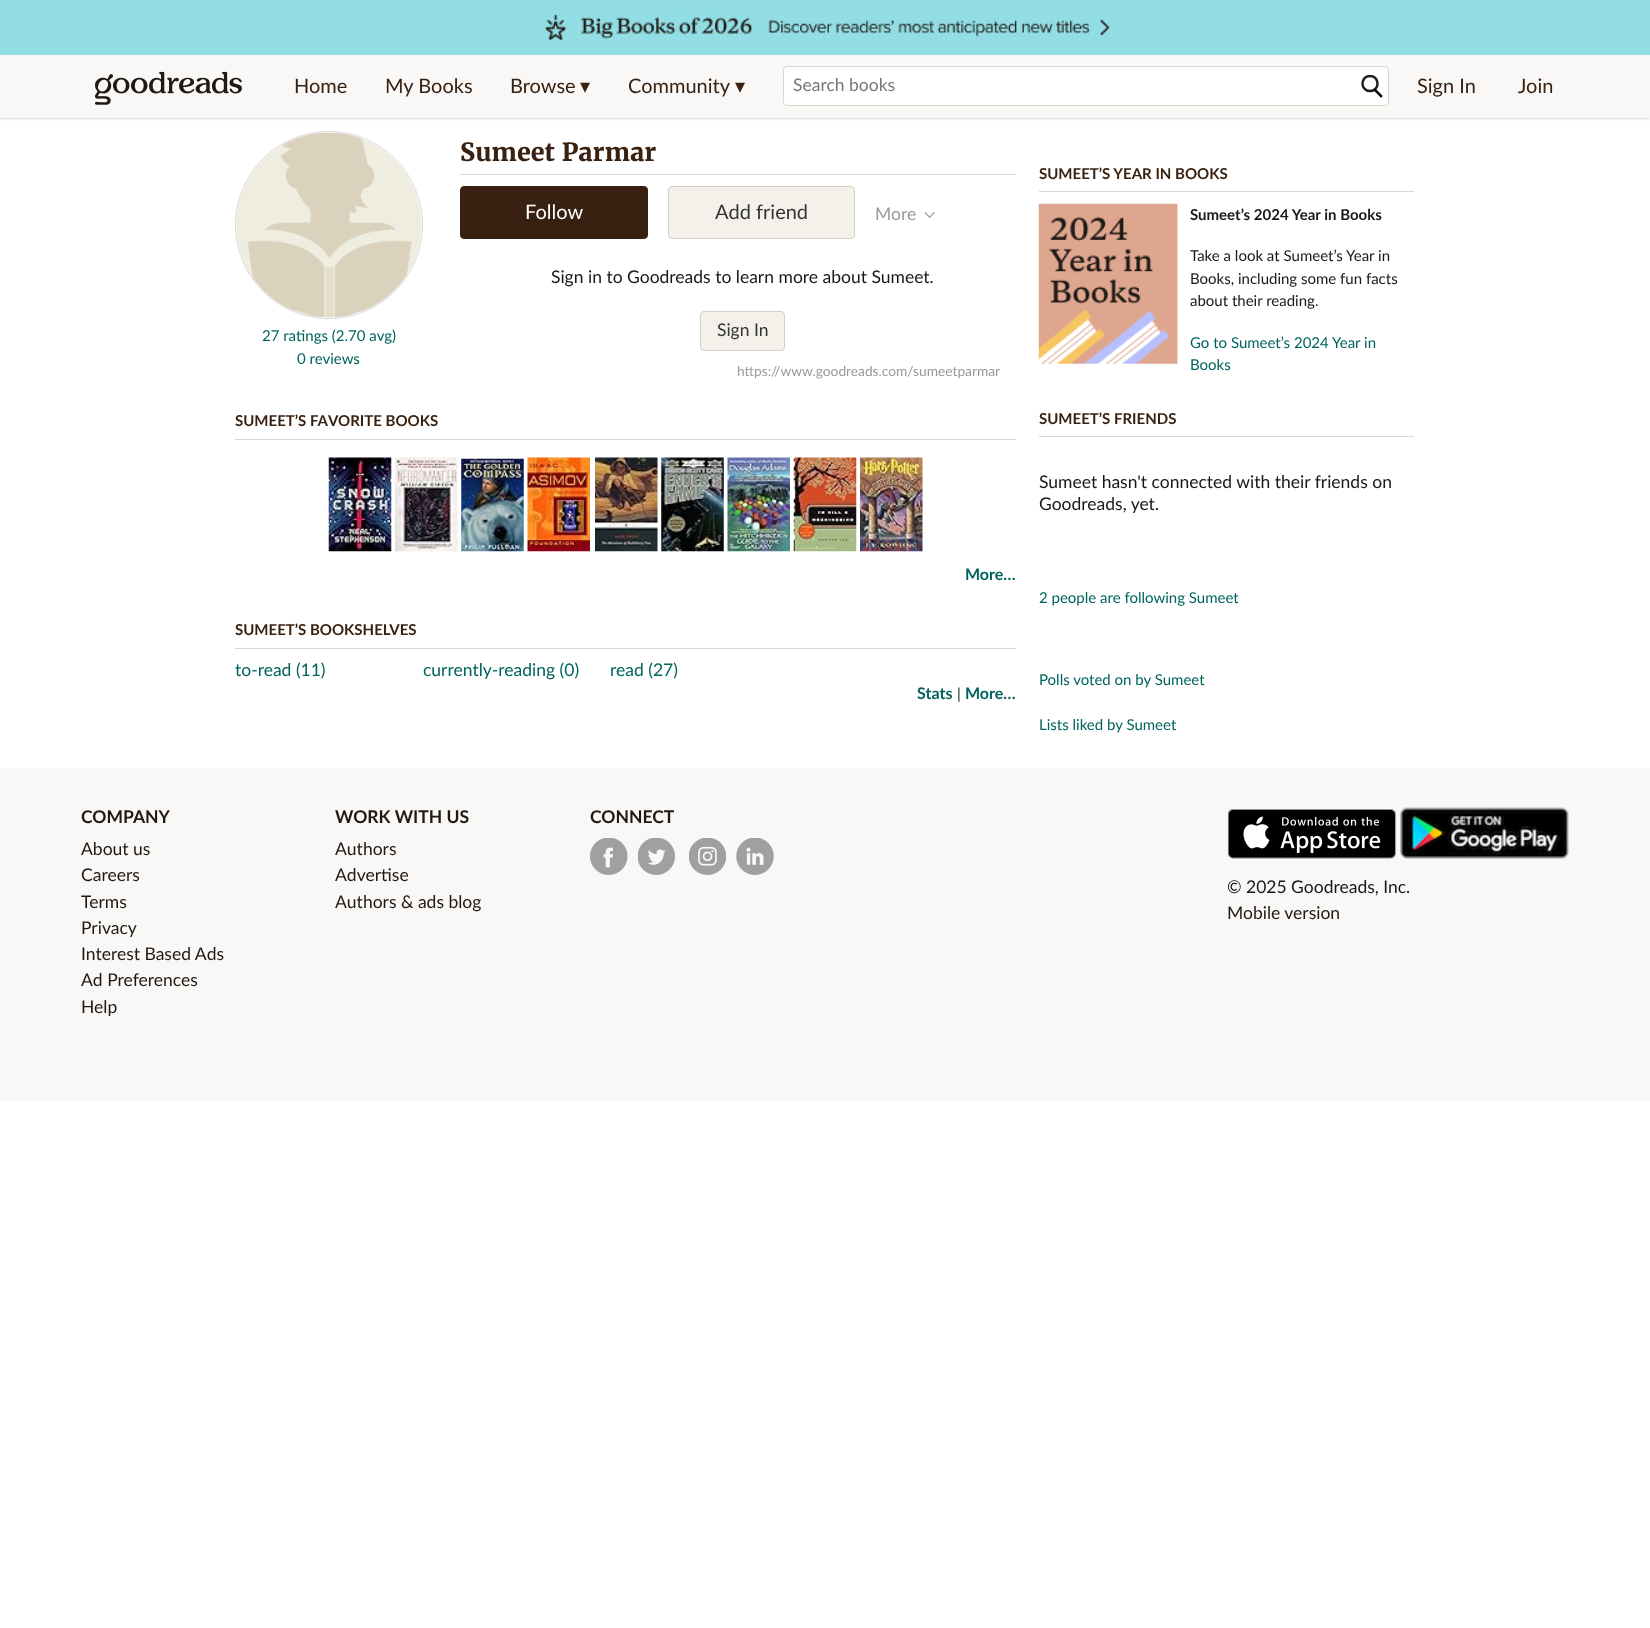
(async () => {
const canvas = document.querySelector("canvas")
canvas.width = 1650
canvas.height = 1628
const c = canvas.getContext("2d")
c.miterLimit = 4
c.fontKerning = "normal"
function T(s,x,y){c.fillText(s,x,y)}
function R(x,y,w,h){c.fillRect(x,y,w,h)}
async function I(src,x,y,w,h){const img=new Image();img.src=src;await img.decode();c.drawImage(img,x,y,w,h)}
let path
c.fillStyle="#fff"
R(0,0,1650,1628)
c.fillStyle="#93dee4"
R(0,0,1650,55)
await I("1.png",544,10,571,31)
c.fillStyle="#00000026"
c.filter="blur(1px)"
c.beginPath()
c.rect(0,56,1650,63)
c.fill()
c.filter="none"
c.fillStyle="#faf8f6"
R(0,55,1650,63)
await I("2.png",95,71,147,34)
c.font="20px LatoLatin"
c.fillStyle="#382110"
T("Home",294,93)
T("My Books",385,93)
T("Browse",510,93)
c.font="20px DejaVu Sans"
T("▾",580,93)
c.font="20px LatoLatin"
T("Community",628,93)
c.font="20px DejaVu Sans"
T("▾",735,93)
c.fillStyle="#fff"
c.beginPath()
c.roundRect(783.5,66.5,605,39,3.5)
c.fill()
c.strokeStyle="#dcd6cc"
c.stroke()
c.font="17.5px LatoLatin"
c.fillStyle="#767676"
T("Search books",793,91)
c.save()
c.beginPath()
c.rect(1361,75,23,24)
c.clip()
path = new Path2D("M1370 91c10 0 10-15 0-15c-10 0-10 15 0 15z")
c.strokeStyle="#202020"
c.lineWidth=2.5
c.stroke(path)
c.restore()
path = new Path2D("M1375.5 90.5l5.5 5.5")
c.strokeStyle="#000"
c.lineWidth=2.5
c.lineCap="square"
c.stroke(path)
c.font="20px LatoLatin"
c.fillStyle="#382110"
T("Sign In",1417,93)
T("Join",1518,93)
c.beginPath()
c.arc(329,225,93.5,0,7)
c.strokeStyle="#d8d8d8"
c.lineWidth=1
c.stroke()
await I("3.png",236,132,185,186)
c.font="15px LatoLatin"
c.fillStyle="#00635d"
T("27 ratings (2.70 avg)",262,341)
T("0 reviews",297,364)
c.fillStyle="#d8d8d8"
R(460,174,556,1)
c.font="bold 25px Merriweather"
c.fillStyle="#382110"
T("Sumeet Parmar",460,161)
c.beginPath()
c.roundRect(460.5,186.5,187,52,3.5)
c.fill()
c.strokeStyle="#382110"
c.stroke()
c.font="20px LatoLatin"
c.fillStyle="#fff"
T("Follow",525,219)
c.fillStyle="#f4f1ea"
c.beginPath()
c.roundRect(668.5,186.5,186,52,3.5)
c.fill()
c.strokeStyle="#d6d0c4"
c.stroke()
c.fillStyle="#333"
T("Add friend",715,219)
c.font="17.5px LatoLatin"
c.fillStyle="#999"
T("More",875,220)
await I("4.png",924,212,11,6)
c.fillStyle="#181818"
T("Sign in to Goodreads to learn more about Sumeet.",551,283)
c.fillStyle="#f4f1ea"
c.beginPath()
c.roundRect(700.5,311.5,84,39,3.5)
c.fill()
c.stroke()
c.fillStyle="#333"
T("Sign In",717,336)
c.font="13.75px LatoLatin"
c.fillStyle="#999"
T("https://www.goodreads.com/sumeetparmar",737,376)
c.fillStyle="#d8d8d8"
R(235,439,781,1)
c.font="bold 15px LatoLatin"
c.fillStyle="#382110"
T("SUMEET’S FAVORITE BOOKS",235,426)
await I("5.png",328,457,64,95)
await I("6.png",395,457,63,95)
await I("7.png",461,458,63,94)
await I("8.png",527,457,63,95)
await I("9.png",595,457,63,95)
await I("10.png",661,457,63,95)
await I("11.png",727,457,63,95)
await I("12.png",793,457,64,95)
await I("13.png",860,457,63,95)
c.font="bold 16px LatoLatin"
c.fillStyle="#00635d"
T("More…",965,580)
c.fillStyle="#d8d8d8"
R(235,648,781,1)
c.font="bold 15px LatoLatin"
c.fillStyle="#382110"
T("SUMEET’S BOOKSHELVES",235,635)
c.font="17.5px LatoLatin"
c.fillStyle="#00635d"
T("to-read (11)",235,676)
T("currently-reading (0)",423,676)
T("read (27)",610,676)
c.font="bold 16px LatoLatin"
T("Stats",917,699)
c.font="15px LatoLatin"
c.fillStyle="#181818"
T("|",957,699)
c.font="bold 16px LatoLatin"
c.fillStyle="#00635d"
T("More…",965,699)
c.fillStyle="#d8d8d8"
R(1039,191,375,1)
c.font="bold 15px LatoLatin"
c.fillStyle="#382110"
T("SUMEET’S YEAR IN BOOKS",1039,179)
await I("14.png",1038,203,140,161)
c.fillStyle="#181818"
T("Sumeet’s 2024 Year in Books",1190,220)
c.font="15px LatoLatin"
T("Take a look at Sumeet’s Year in",1190,261)
T("Books, including some fun facts",1190,284)
T("about their reading.",1190,306)
c.fillStyle="#00635d"
T("Go to Sumeet’s 2024 Year in",1190,348)
T("Books",1190,370)
c.fillStyle="#d8d8d8"
R(1039,436,375,1)
c.font="bold 15px LatoLatin"
c.fillStyle="#382110"
T("SUMEET’S FRIENDS",1039,424)
c.font="17.5px LatoLatin"
c.fillStyle="#181818"
T("Sumeet hasn't connected with their friends on",1039,488)
T("Goodreads, yet.",1039,510)
c.font="15px LatoLatin"
c.fillStyle="#00635d"
T("2 people are following Sumeet",1039,603)
T("Polls voted on by Sumeet",1039,685)
T("Lists liked by Sumeet",1039,730)
c.fillStyle="#faf8f6"
R(0,768,1650,333)
c.font="bold 17.5px LatoLatin"
c.fillStyle="#1e1915"
T("COMPANY",81,823)
c.font="17.5px LatoLatin"
T("About us",81,855)
T("Careers",81,881)
T("Terms",81,908)
T("Privacy",81,934)
T("Interest Based Ads",81,960)
T("Ad Preferences",81,986)
T("Help",81,1013)
c.font="bold 17.5px LatoLatin"
T("WORK WITH US",335,823)
c.font="17.5px LatoLatin"
T("Authors",335,855)
T("Advertise",335,881)
T("Authors & ads blog",335,908)
c.font="bold 17.5px LatoLatin"
T("CONNECT",590,823)
await I("15.png",590,838,38,37)
await I("16.png",638,838,37,37)
await I("17.png",689,838,37,37)
await I("18.png",736,838,38,37)
await I("19.png",1228,809,168,50)
await I("20.png",1400,807,169,52)
c.font="17.5px LatoLatin"
c.fillStyle="#181818"
T("© 2025 Goodreads, Inc.",1227,893)
c.fillStyle="#1e1915"
T("Mobile version",1227,919)
})()
